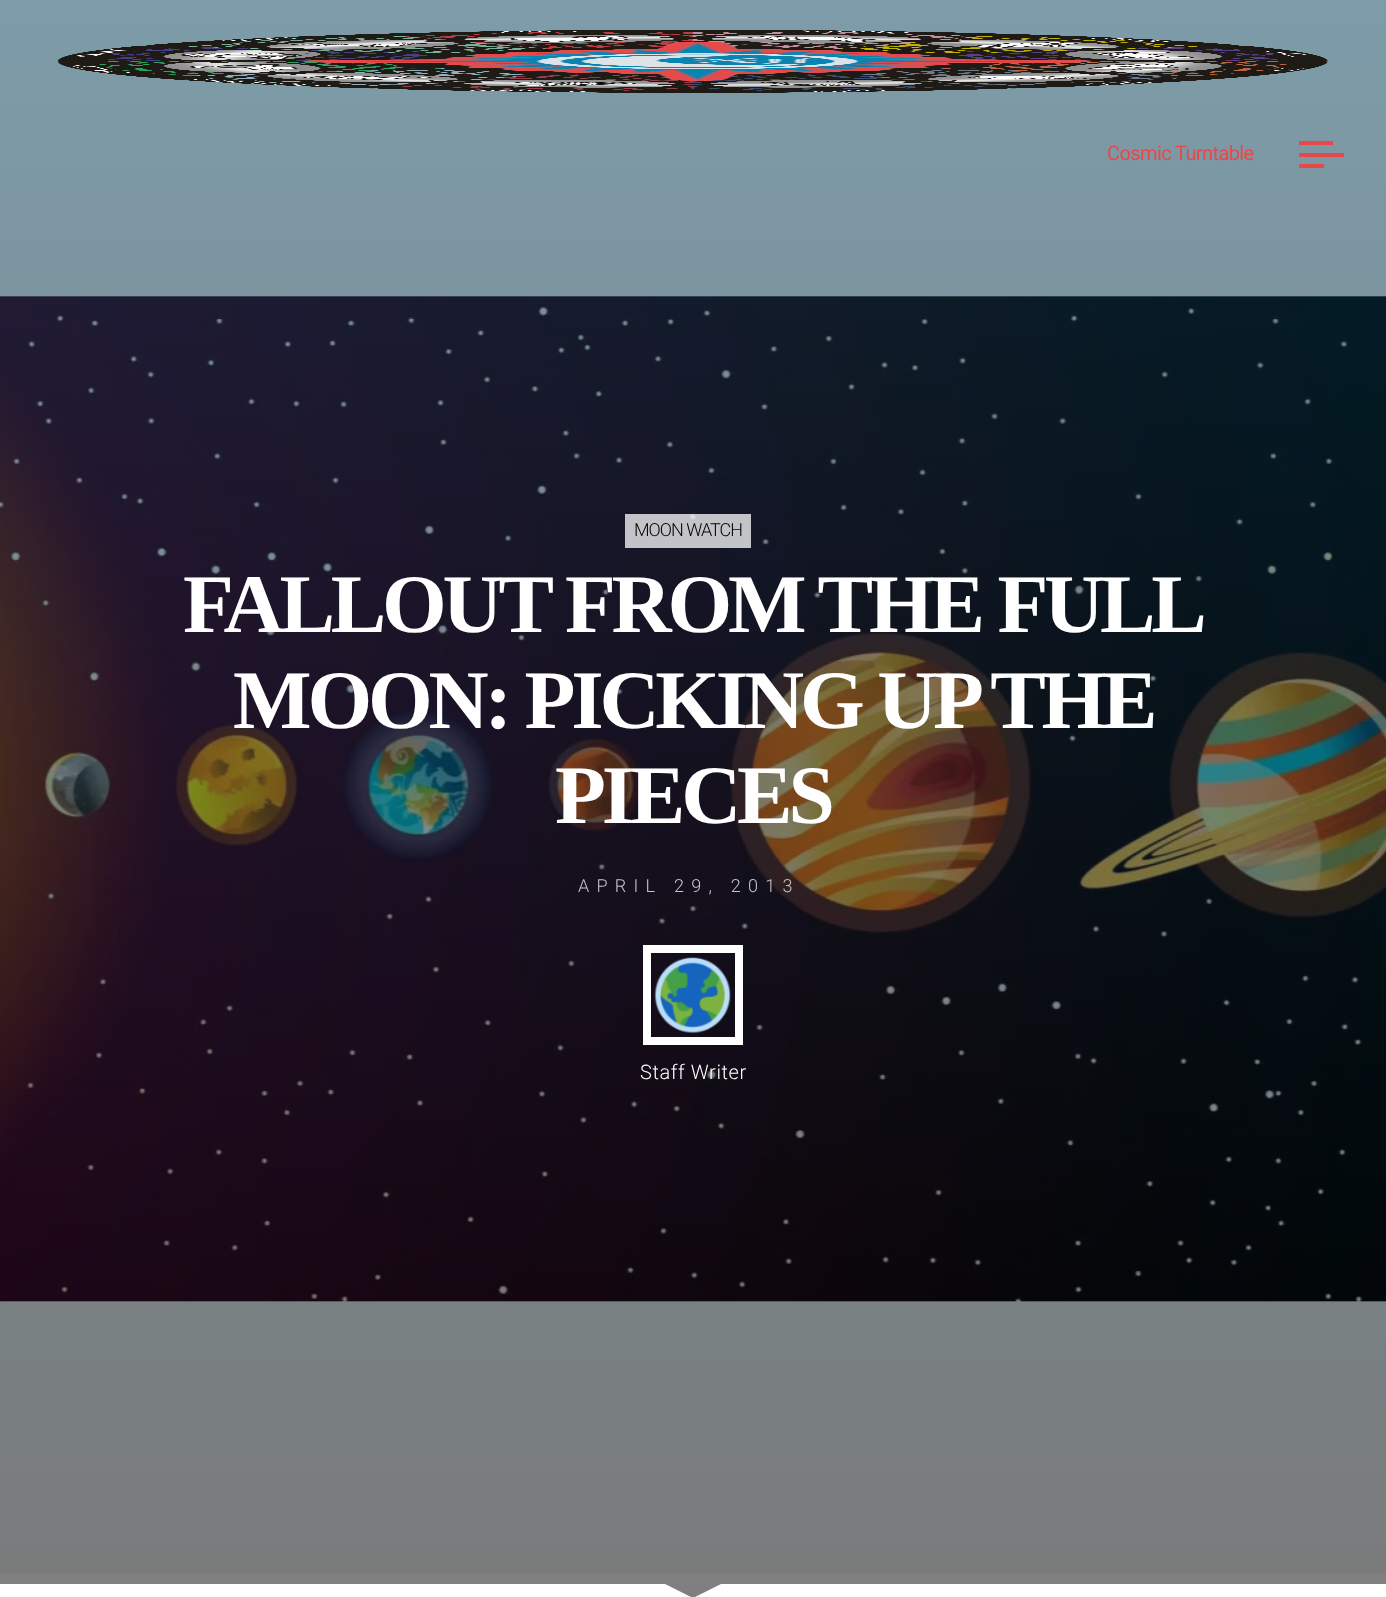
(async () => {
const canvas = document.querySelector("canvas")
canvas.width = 1386
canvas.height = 1597
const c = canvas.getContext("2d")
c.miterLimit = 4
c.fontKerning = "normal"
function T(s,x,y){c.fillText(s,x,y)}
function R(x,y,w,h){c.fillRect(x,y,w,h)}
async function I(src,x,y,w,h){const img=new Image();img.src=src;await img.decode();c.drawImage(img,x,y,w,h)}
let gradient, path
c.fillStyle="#f3f7f6"
R(0,0,1386,1597)
await I("1.png",0,296,1386,1006)
c.fillStyle="#fff"
R(0,1574,1386,23)
gradient = c.createLinearGradient(693,0,693,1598)
gradient.addColorStop(0,"#08415c80")
gradient.addColorStop(1,"#00000080")
c.fillStyle = gradient
path = new Path2D("M0 0v1584h665l28 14l28-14h665v-1584z")
c.fill(path)
await I("2.png",57,30,1271,63)
c.letterSpacing="-0.6px"
c.font="20px Roboto"
c.fillStyle="#e74949"
T("Cosmic Turntable",1107,160)
R(1299,141,34,4)
R(1299,153,45,4)
R(1299,164,25,4)
c.fillStyle="#ffffffbf"
R(625,514,126,34)
c.letterSpacing="-1px"
c.font="300 18px Roboto"
c.fillStyle="#000"
T("MOON WATCH",634,536)
c.letterSpacing="-4.2px"
c.font="bold 83.25px Liberation Serif"
c.fillStyle="#fff"
T("FALLOUT FROM THE FULL",183,632)
T("MOON: PICKING UP THE",233,728)
T("PIECES",555,823)
c.letterSpacing="7.25px"
c.font="300 18px Roboto"
c.fillStyle="#c5c3c7"
T("APRIL 29, 2013",578,892)
c.strokeStyle="#fff"
c.lineWidth=8
c.strokeRect(647,949,92,92)
await I("3.png",654,957,77,77)
c.letterSpacing="0.6px"
c.font="300 20px Roboto"
c.fillStyle="#fff"
T("Staff Writer",640,1079)
})()
